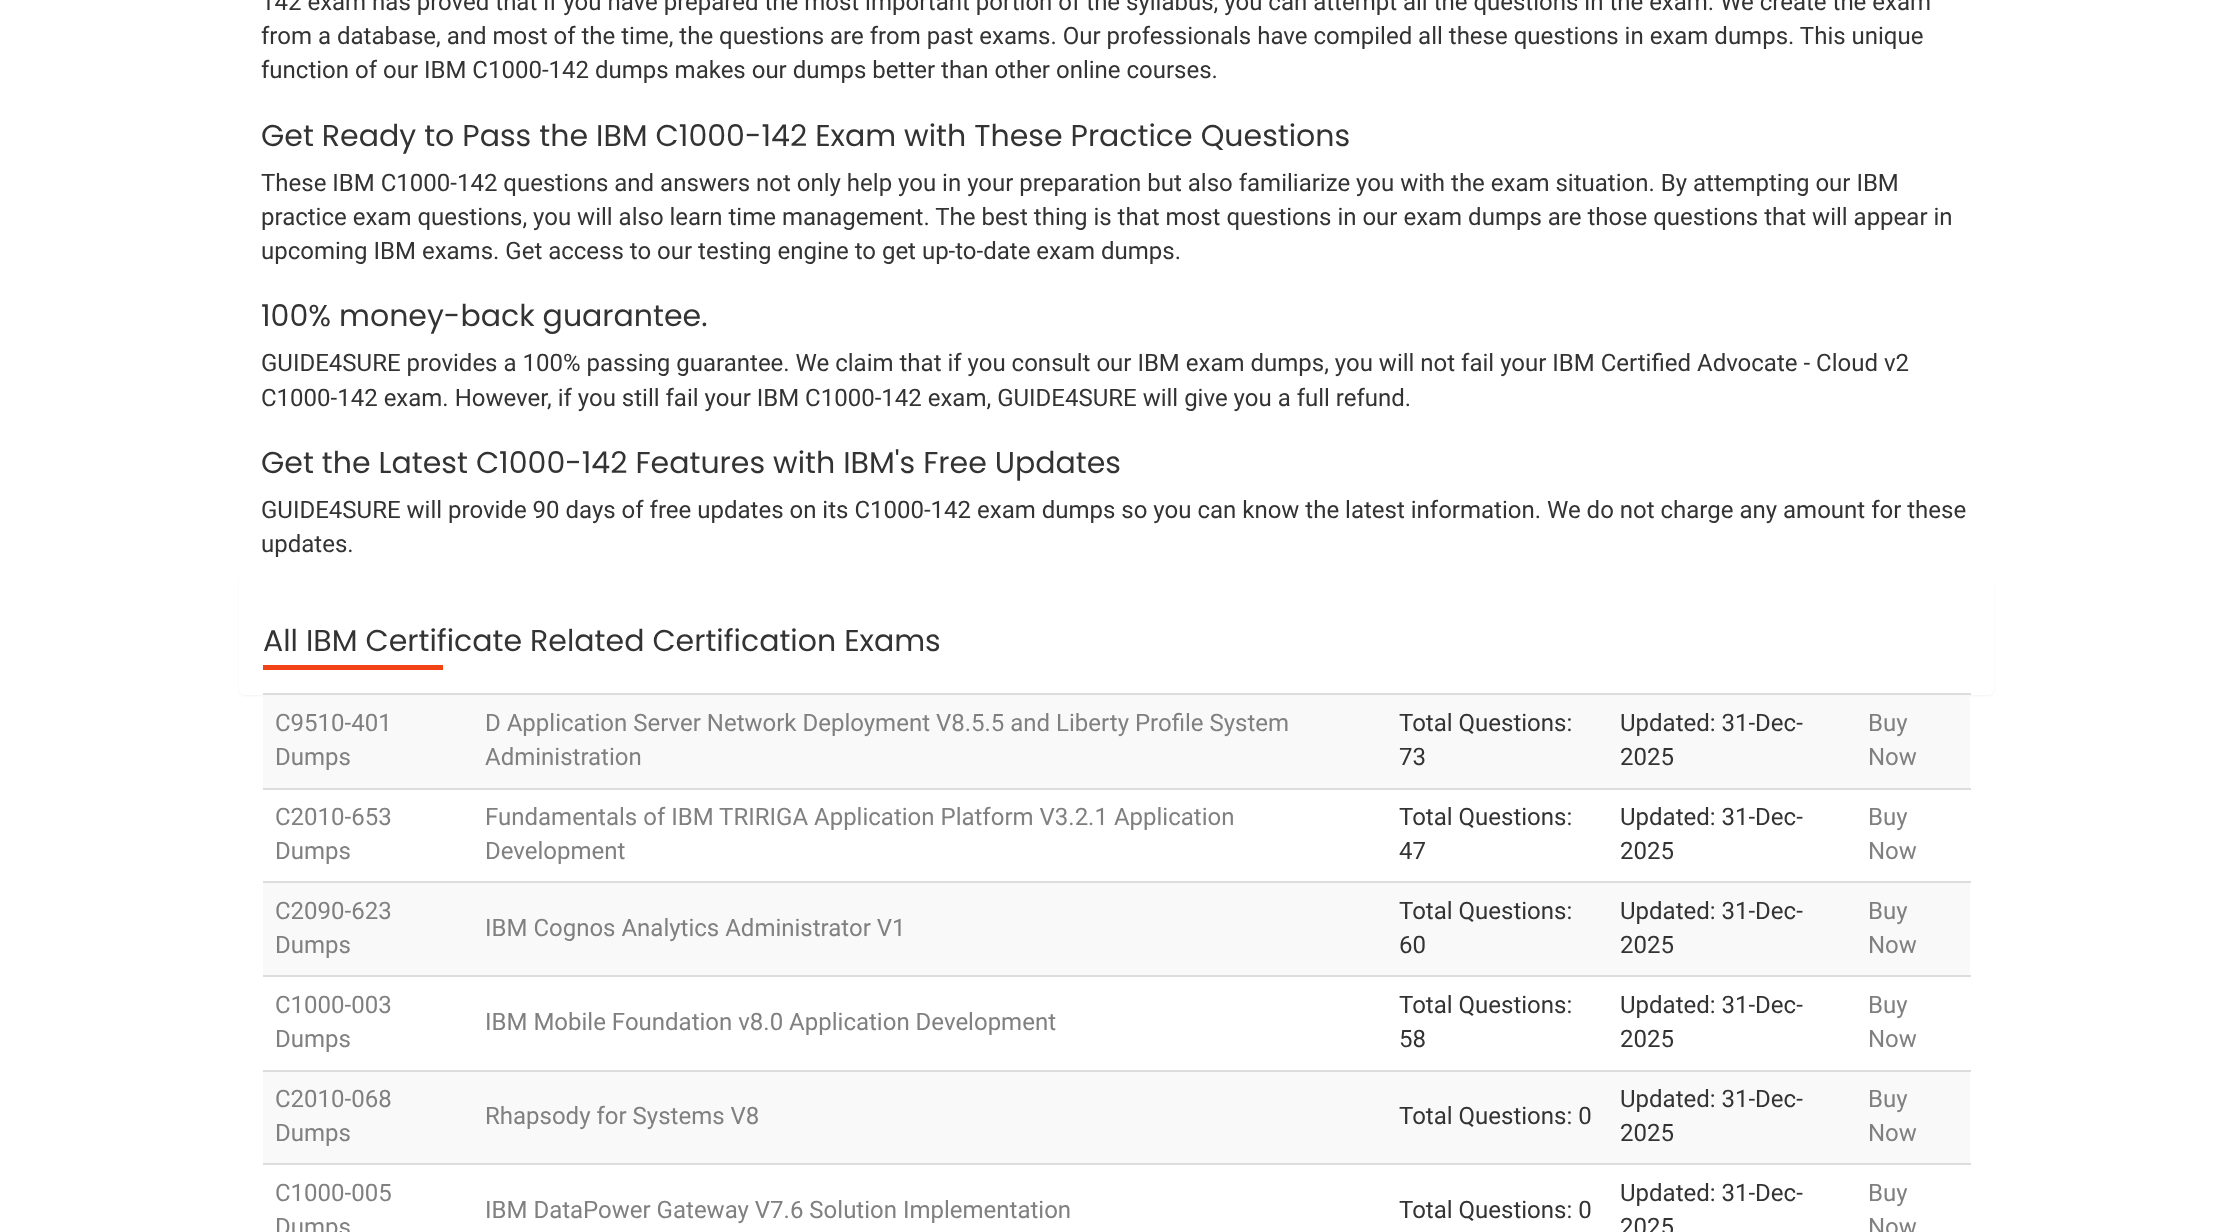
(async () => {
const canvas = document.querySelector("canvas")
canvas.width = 2232
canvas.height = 1232
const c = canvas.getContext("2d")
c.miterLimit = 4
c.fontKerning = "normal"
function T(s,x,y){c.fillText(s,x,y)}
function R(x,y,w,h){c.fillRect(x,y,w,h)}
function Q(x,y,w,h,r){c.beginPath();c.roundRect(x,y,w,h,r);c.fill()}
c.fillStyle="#fff"
R(0,0,2232,1232)
c.font="24px Roboto"
c.fillStyle="#333"
T("142 exam has proved that if you have prepared the most important portion of the syllabus, you can attempt all the questions in the exam. We create the exam",261,10)
T("from a database, and most of the time, the questions are from past exams. Our professionals have compiled all these questions in exam dumps. This unique",261,44)
T("function of our IBM C1000-142 dumps makes our dumps better than other online courses.",261,78)
c.font="30px Poppins"
T("Get Ready to Pass the IBM C1000-142 Exam with These Practice Questions",261,146)
c.font="24px Roboto"
T("These IBM C1000-142 questions and answers not only help you in your preparation but also familiarize you with the exam situation. By attempting our IBM",261,191)
T("practice exam questions, you will also learn time management. The best thing is that most questions in our exam dumps are those questions that will appear in",261,225)
T("upcoming IBM exams. Get access to our testing engine to get up-to-date exam dumps.",261,259)
c.font="30px Poppins"
T("100% money-back guarantee.",261,326)
c.font="24px Roboto"
T("GUIDE4SURE provides a 100% passing guarantee. We claim that if you consult our IBM exam dumps, you will not fail your IBM Certified Advocate - Cloud v2",261,371)
T("C1000-142 exam. However, if you still fail your IBM C1000-142 exam, GUIDE4SURE will give you a full refund.",261,406)
c.font="30px Poppins"
T("Get the Latest C1000-142 Features with IBM's Free Updates",261,473)
c.font="24px Roboto"
T("GUIDE4SURE will provide 90 days of free updates on its C1000-142 exam dumps so you can know the latest information. We do not charge any amount for these",261,518)
T("updates.",261,552)
c.fillStyle="#0000000d"
c.filter="blur(1px)"
c.beginPath()
c.roundRect(239,579,1755,117,6)
c.fill()
c.filter="none"
c.fillStyle="#fff"
Q(239,578,1755,117,6)
c.font="30px Poppins"
c.fillStyle="#333"
T("All IBM Certificate Related Certification Exams",263,651)
c.fillStyle="#f14316"
R(263,665,180,5)
c.fillStyle="#f9f9f9"
R(263,695,1707,93)
c.font="24px Roboto"
c.fillStyle="#808080"
T("C9510-401",275,731)
T("Dumps",275,765)
T("D Application Server Network Deployment V8.5.5 and Liberty Profile System",485,731)
T("Administration",485,765)
c.fillStyle="#333"
T("Total Questions:",1399,731)
T("73",1399,765)
T("Updated: 31-Dec-",1620,731)
T("2025",1620,765)
c.fillStyle="#ddd"
R(263,693,1708,2)
c.fillStyle="#808080"
T("Buy",1868,731)
T("Now",1868,765)
T("C2010-653",275,825)
T("Dumps",275,859)
T("Fundamentals of IBM TRIRIGA Application Platform V3.2.1 Application",485,825)
T("Development",485,859)
c.fillStyle="#333"
T("Total Questions:",1399,825)
T("47",1399,859)
T("Updated: 31-Dec-",1620,825)
T("2025",1620,859)
c.fillStyle="#ddd"
R(263,788,1708,2)
c.fillStyle="#808080"
T("Buy",1868,825)
T("Now",1868,859)
c.fillStyle="#f9f9f9"
R(263,883,1707,92)
c.fillStyle="#808080"
T("C2090-623",275,919)
T("Dumps",275,953)
T("IBM Cognos Analytics Administrator V1",485,936)
c.fillStyle="#333"
T("Total Questions:",1399,919)
T("60",1399,953)
T("Updated: 31-Dec-",1620,919)
T("2025",1620,953)
c.fillStyle="#ddd"
R(263,881,1708,2)
c.fillStyle="#808080"
T("Buy",1868,919)
T("Now",1868,953)
T("C1000-003",275,1013)
T("Dumps",275,1047)
T("IBM Mobile Foundation v8.0 Application Development",485,1030)
c.fillStyle="#333"
T("Total Questions:",1399,1013)
T("58",1399,1047)
T("Updated: 31-Dec-",1620,1013)
T("2025",1620,1047)
c.fillStyle="#ddd"
R(263,975,1708,2)
c.fillStyle="#808080"
T("Buy",1868,1013)
T("Now",1868,1047)
c.fillStyle="#f9f9f9"
R(263,1072,1707,91)
c.fillStyle="#808080"
T("C2010-068",275,1107)
T("Dumps",275,1141)
T("Rhapsody for Systems V8",485,1124)
c.fillStyle="#333"
T("Total Questions: 0",1399,1124)
T("Updated: 31-Dec-",1620,1107)
T("2025",1620,1141)
c.fillStyle="#ddd"
R(263,1070,1708,2)
c.fillStyle="#808080"
T("Buy",1868,1107)
T("Now",1868,1141)
T("C1000-005",275,1201)
T("Dumps",275,1235)
T("IBM DataPower Gateway V7.6 Solution Implementation",485,1218)
c.fillStyle="#333"
T("Total Questions: 0",1399,1218)
T("Updated: 31-Dec-",1620,1201)
T("2025",1620,1235)
c.fillStyle="#ddd"
R(263,1163,1708,2)
c.fillStyle="#808080"
T("Buy",1868,1201)
T("Now",1868,1235)
})()
